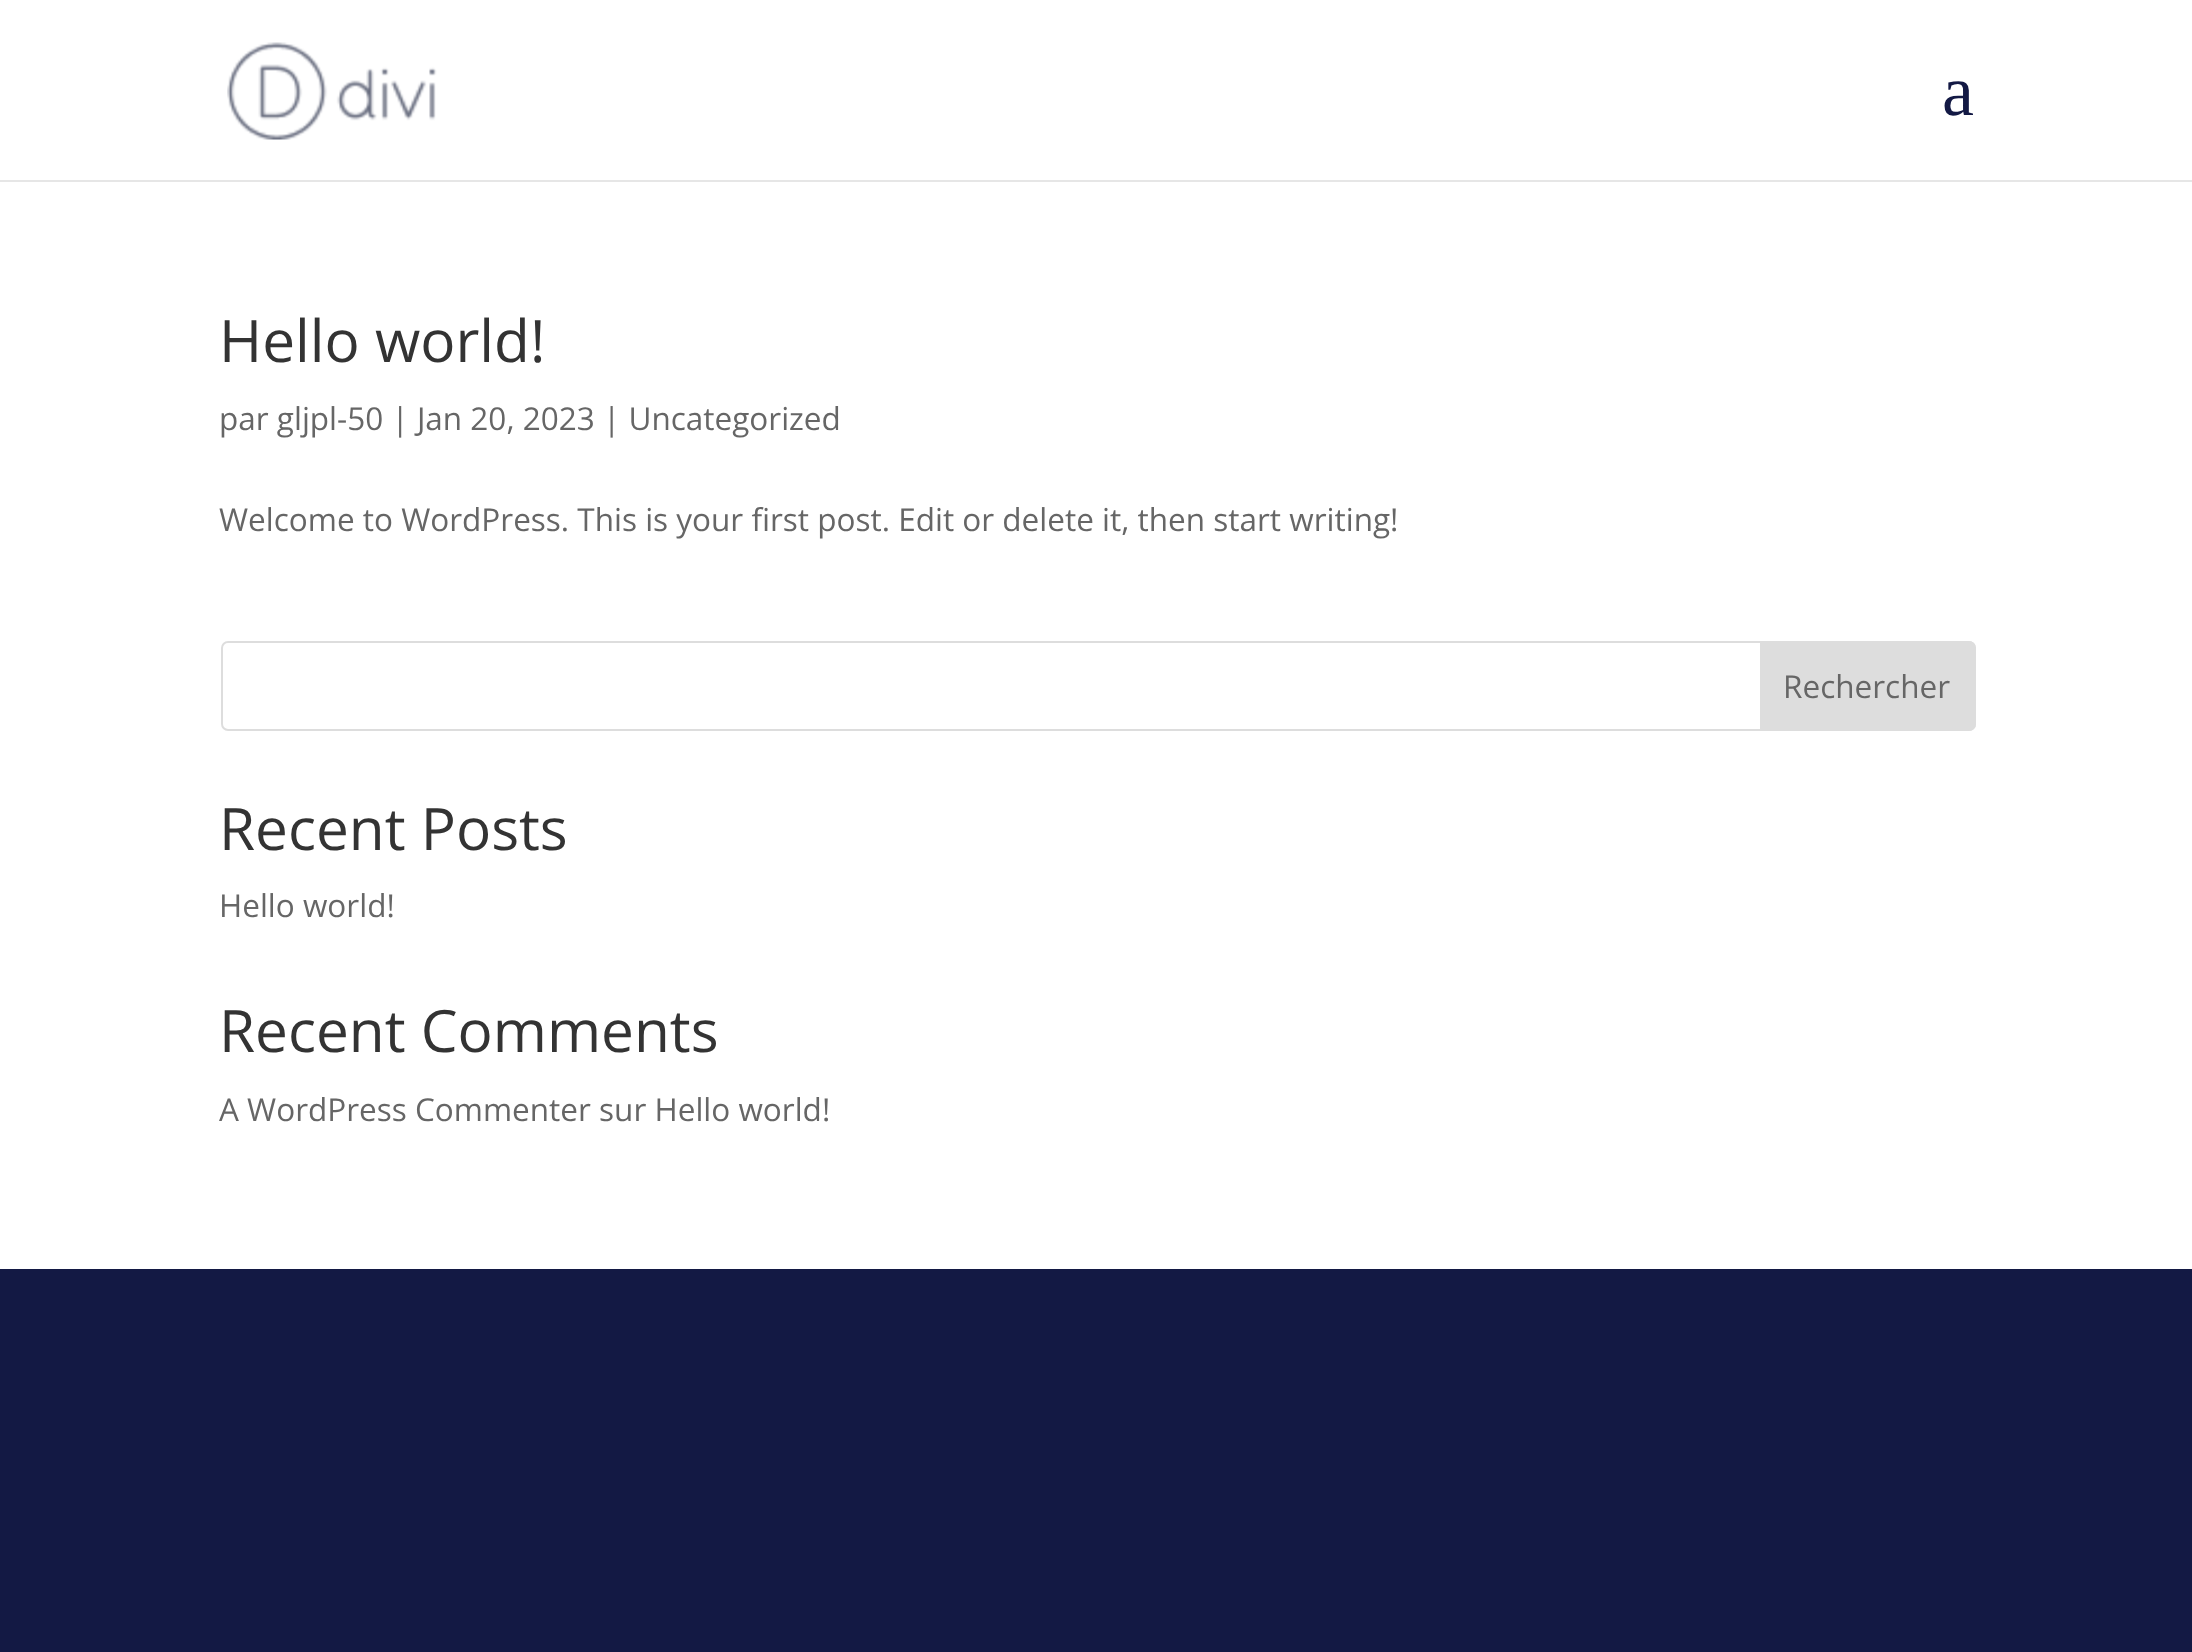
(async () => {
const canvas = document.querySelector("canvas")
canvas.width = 2192
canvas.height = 1652
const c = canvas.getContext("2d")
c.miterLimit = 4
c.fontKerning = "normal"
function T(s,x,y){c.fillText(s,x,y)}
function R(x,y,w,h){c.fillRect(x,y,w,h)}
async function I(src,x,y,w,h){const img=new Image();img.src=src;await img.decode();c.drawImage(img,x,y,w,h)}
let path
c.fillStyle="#fff"
R(0,0,2192,1652)
c.fillStyle="#e6e6e6"
path = new Path2D("M0 180v2h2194v-180v178z")
c.fill(path)
await I("1.png",227,42,210,98)
c.font="72px Liberation Serif"
c.fillStyle="#131944"
T("a",1942,115)
c.font="58.5px Open Sans"
c.fillStyle="#333"
T("Hello world!",219,362)
c.font="31.5px Open Sans"
c.fillStyle="#666"
T("par gljpl-50 | Jan 20, 2023 | Uncategorized",219,430)
T("Welcome to WordPress. This is your first post. Edit or delete it, then start writing!",219,531)
c.beginPath()
c.roundRect(222,642,1753,88,6)
c.strokeStyle="#ddd"
c.lineWidth=2
c.stroke()
c.fillStyle="#ddd"
c.beginPath()
c.roundRect(1761,642,214,88,[0,6,6,0])
c.fill()
c.stroke()
c.fillStyle="#666"
T("Rechercher",1783,698)
c.font="58.5px Open Sans"
c.fillStyle="#333"
T("Recent Posts",219,850)
c.font="31.5px Open Sans"
c.fillStyle="#666"
T("Hello world!",219,917)
c.font="58.5px Open Sans"
c.fillStyle="#333"
T("Recent Comments",219,1052)
c.font="31.5px Open Sans"
c.fillStyle="#666"
T("A WordPress Commenter sur Hello world!",219,1121)
c.fillStyle="#131944"
R(0,1269,2192,383)
})()
